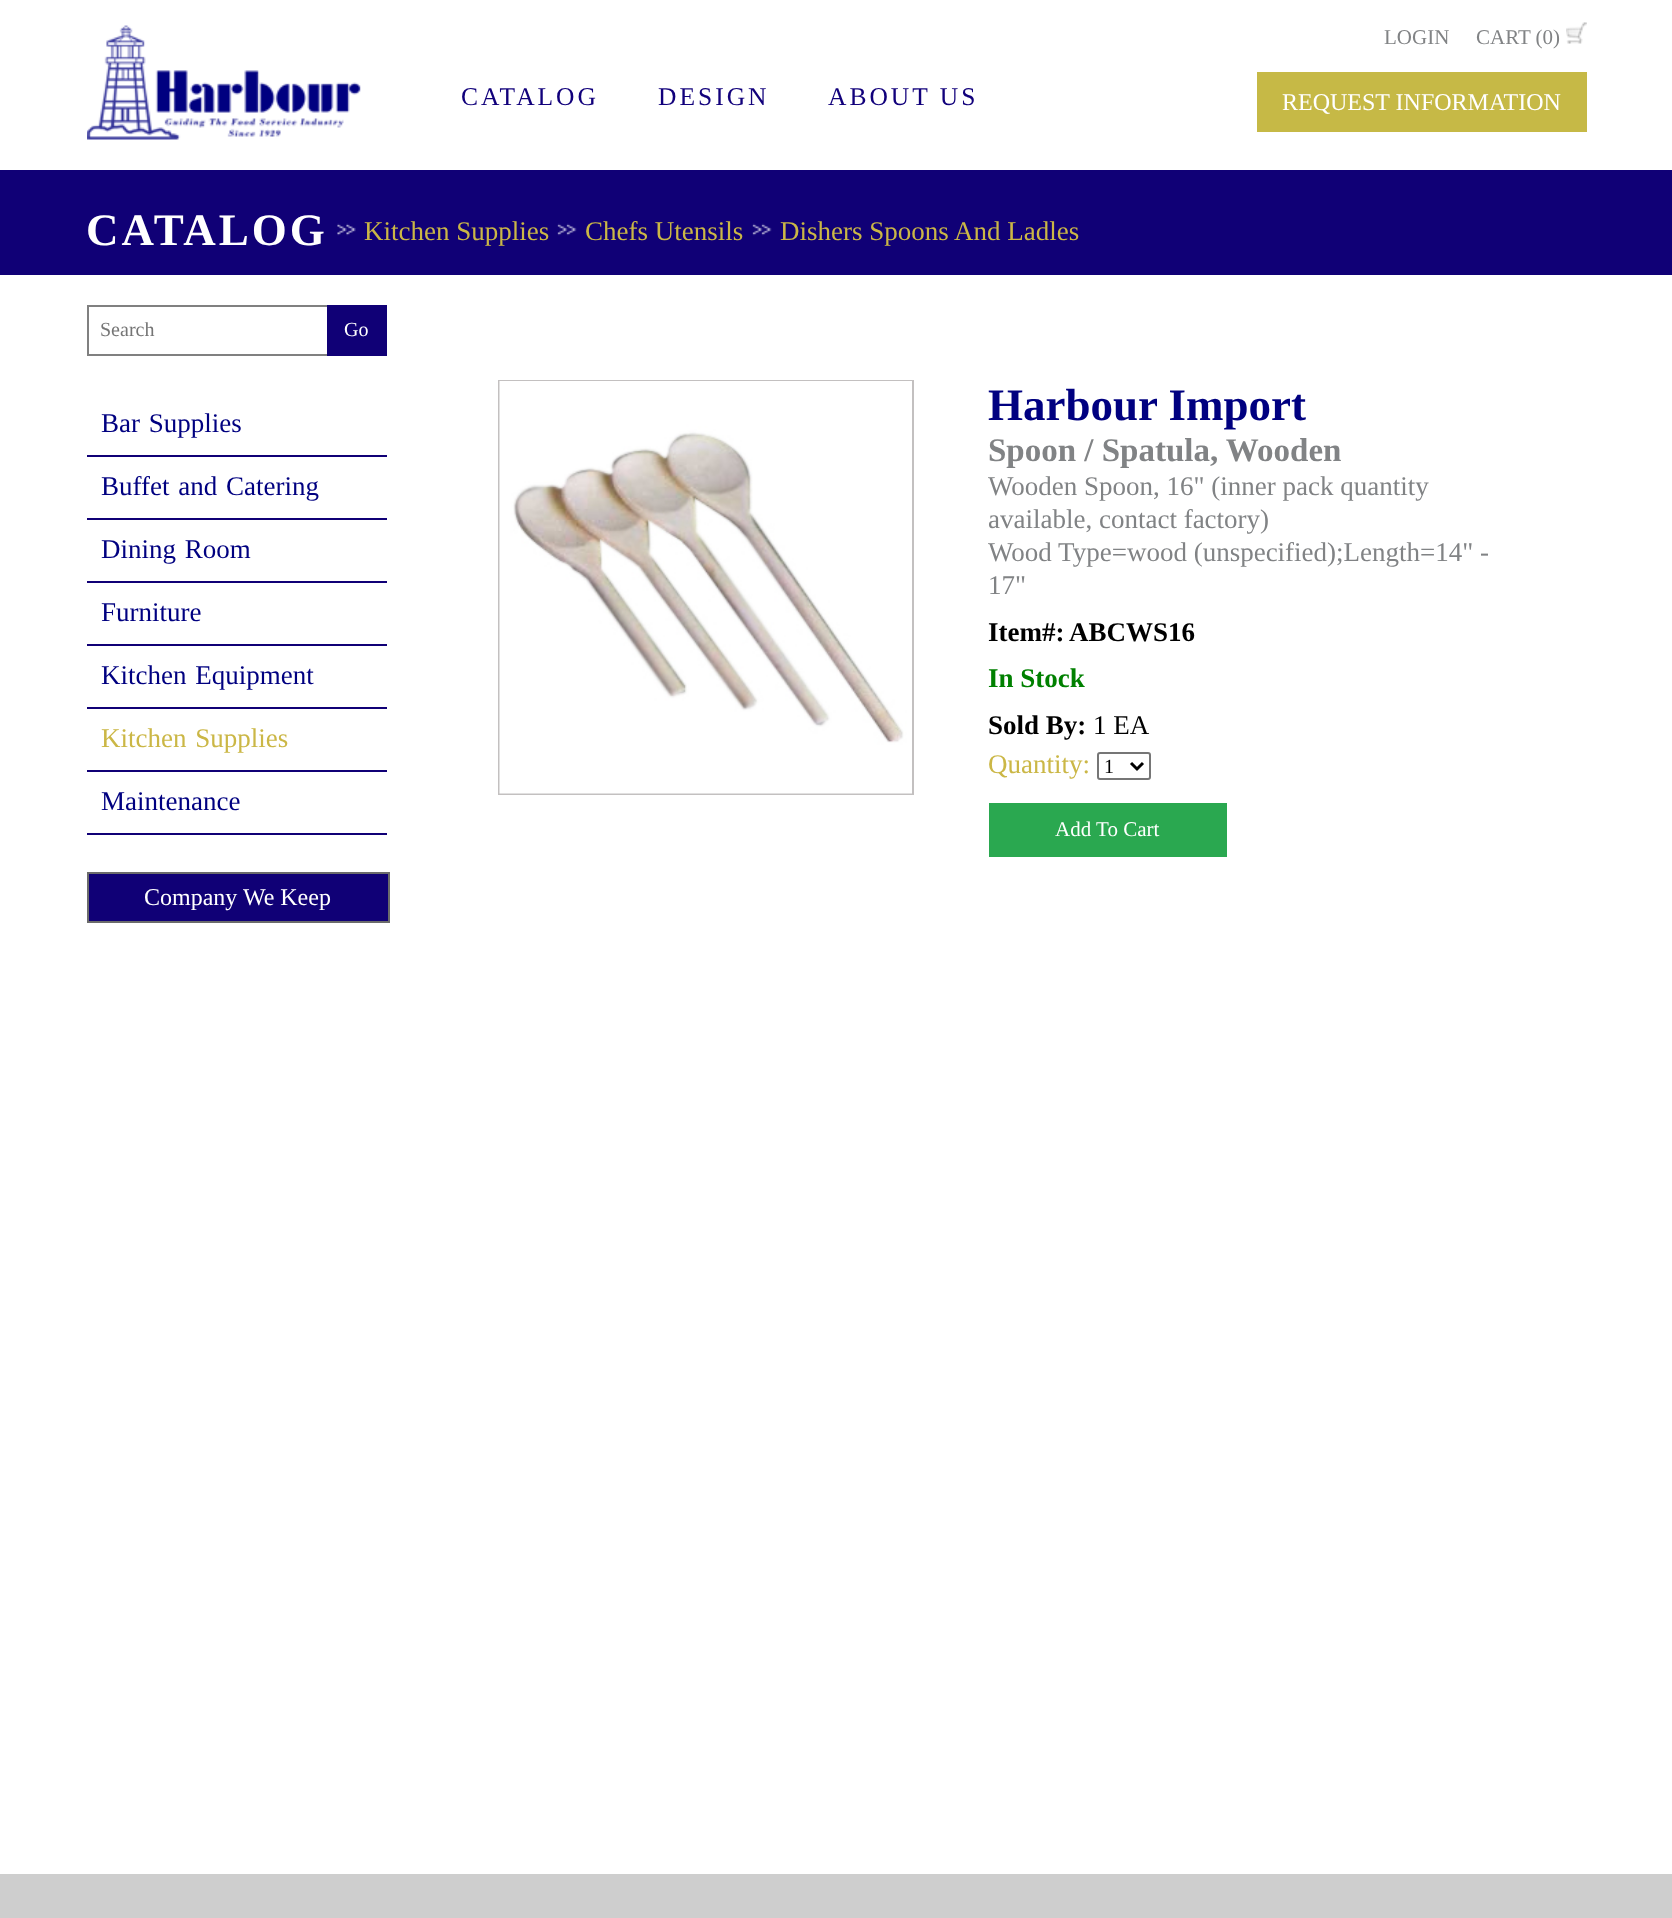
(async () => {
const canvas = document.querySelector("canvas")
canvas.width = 1672
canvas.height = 1918
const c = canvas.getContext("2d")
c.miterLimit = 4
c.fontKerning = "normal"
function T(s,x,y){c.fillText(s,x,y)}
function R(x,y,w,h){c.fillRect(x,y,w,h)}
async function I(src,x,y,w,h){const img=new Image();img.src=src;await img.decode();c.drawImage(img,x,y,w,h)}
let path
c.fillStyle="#fff"
R(0,0,1672,1918)
await I("1.png",87,25,274,115)
c.letterSpacing="3px"
c.font="25.5px Liberation Serif"
c.fillStyle="#11007b"
T("CATALOG",461,105)
T("DESIGN",658,105)
T("ABOUT US",828,105)
c.letterSpacing="0px"
c.font="21px Liberation Serif"
c.fillStyle="#818385"
T("LOGIN",1384,44)
T("CART (0)",1476,44)
await I("2.png",1566,22,21,22)
c.fillStyle="#c6b946"
R(1257,72,330,60)
c.font="24px Liberation Serif"
c.fillStyle="#fff"
T("REQUEST INFORMATION",1282,110)
c.fillStyle="#100076"
R(0,170,1672,105)
c.letterSpacing="3px"
c.font="bold 45px Liberation Serif"
c.fillStyle="#fff"
T("CATALOG",86,245)
await I("3.png",337,223,19,13)
c.letterSpacing="0px"
c.font="27px Liberation Serif"
c.fillStyle="#cbb746"
T("Kitchen Supplies",364,240)
await I("4.png",557,223,20,13)
T("Chefs Utensils",585,240)
await I("5.png",752,223,20,13)
T("Dishers Spoons And Ladles",780,240)
c.strokeStyle="#808080"
c.lineWidth=2
c.strokeRect(88,306,240,49)
c.font="20px Liberation Serif"
c.fillStyle="#757575"
T("Search",100,336)
c.fillStyle="#100076"
R(327,305,60,51)
c.fillStyle="#fff"
T("Go",344,336)
c.fillStyle="#100076"
R(87,455,300,2)
c.wordSpacing="2px"
c.font="27px Liberation Serif"
c.fillStyle="#000080"
T("Bar Supplies",101,432)
c.fillStyle="#100076"
R(87,518,300,2)
c.fillStyle="#000080"
T("Buffet and Catering",101,495)
c.fillStyle="#100076"
R(87,581,300,2)
c.fillStyle="#000080"
T("Dining Room",101,558)
c.fillStyle="#100076"
R(87,644,300,2)
c.wordSpacing="0px"
c.fillStyle="#000080"
T("Furniture",101,621)
c.fillStyle="#100076"
R(87,707,300,2)
c.wordSpacing="2px"
c.fillStyle="#000080"
T("Kitchen Equipment",101,684)
c.fillStyle="#100076"
R(87,770,300,2)
c.fillStyle="#cbb746"
T("Kitchen Supplies",101,747)
c.fillStyle="#100076"
R(87,833,300,2)
c.wordSpacing="0px"
c.fillStyle="#000080"
T("Maintenance",101,810)
c.fillStyle="#100076"
c.beginPath()
c.rect(88,873,301,49)
c.fill()
c.strokeStyle="#6b6b6b"
c.stroke()
c.font="24px Liberation Serif"
c.fillStyle="#fff"
T("Company We Keep",144,905)
c.strokeStyle="#c3c0c0"
c.strokeRect(499,381,414,413)
await I("6.png",499,381,413,413)
c.font="bold 45px Liberation Serif"
c.fillStyle="#000080"
T("Harbour Import",988,420)
c.font="bold 33px Liberation Serif"
c.fillStyle="#818385"
T("Spoon / Spatula, Wooden",988,461)
c.font="27px Liberation Serif"
T("Wooden Spoon, 16\" (inner pack quantity",988,495)
T("available, contact factory)",988,528)
T("Wood Type=wood (unspecified);Length=14\" -",988,561)
T("17\"",988,594)
c.font="bold 27px Liberation Serif"
c.fillStyle="#000"
T("Item#:",988,641)
T("ABCWS16",1069,641)
c.fillStyle="#008000"
T("In Stock",988,687)
c.fillStyle="#000"
T("Sold By:",988,734)
c.font="27px Liberation Serif"
T("1 EA",1093,734)
c.fillStyle="#cbb746"
T("Quantity:",988,773)
c.beginPath()
c.roundRect(1098,753,52,26,2)
c.strokeStyle="#767676"
c.stroke()
path = new Path2D("M1131 763l6 6l6-6")
c.strokeStyle="#000"
c.lineWidth=3
c.stroke(path)
c.font="20px Liberation Serif"
c.fillStyle="#000"
T("1",1104,773)
c.fillStyle="#2aa850"
R(989,803,238,54)
c.font="21px Liberation Serif"
c.fillStyle="#fff"
T("Add To Cart",1055,836)
c.fillStyle="#cecece"
R(0,1874,1672,44)
})()
